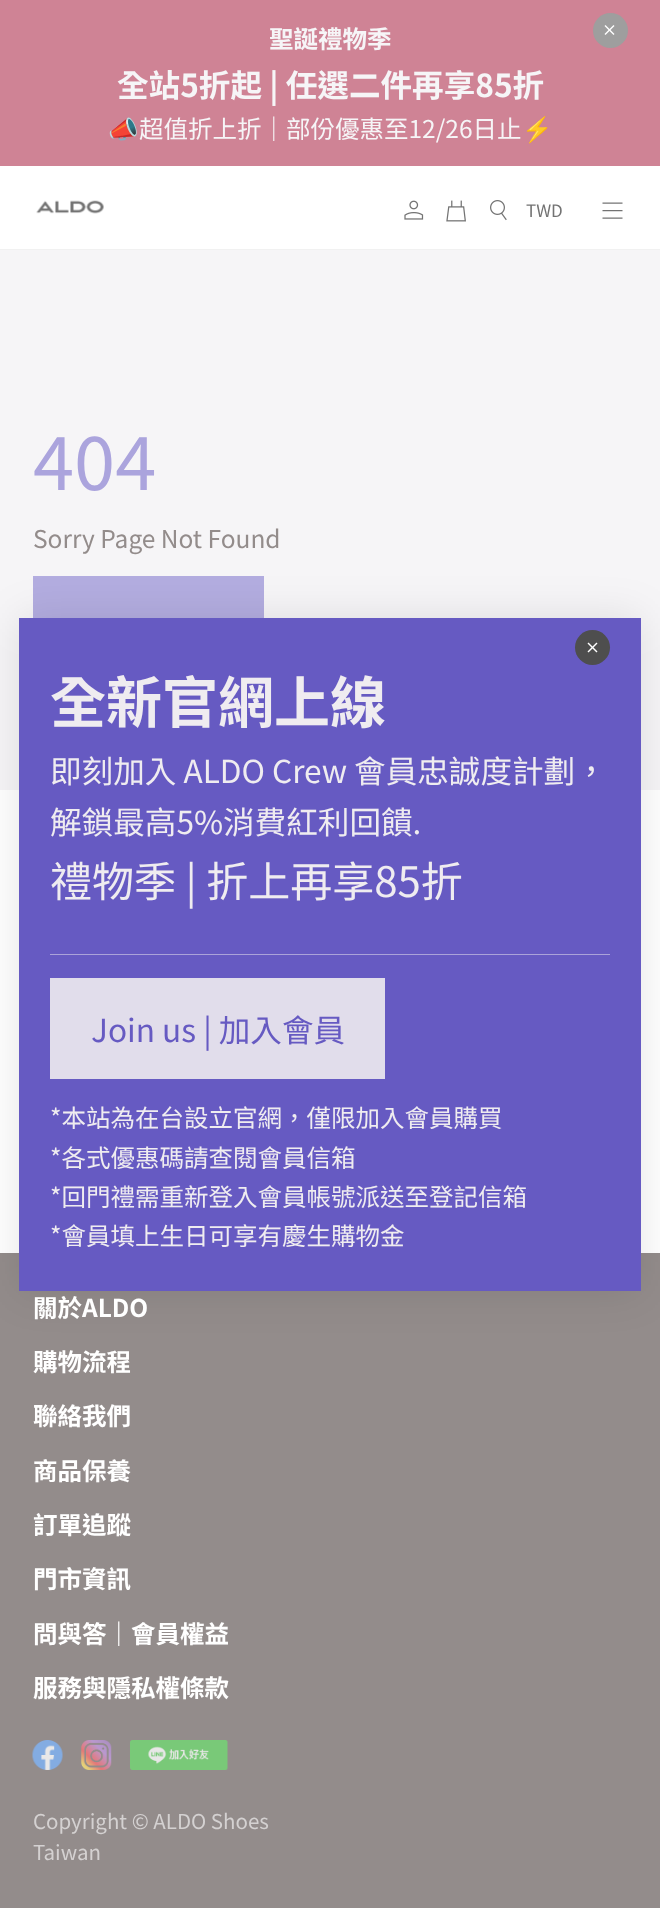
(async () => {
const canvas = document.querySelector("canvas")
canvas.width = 660
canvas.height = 1908
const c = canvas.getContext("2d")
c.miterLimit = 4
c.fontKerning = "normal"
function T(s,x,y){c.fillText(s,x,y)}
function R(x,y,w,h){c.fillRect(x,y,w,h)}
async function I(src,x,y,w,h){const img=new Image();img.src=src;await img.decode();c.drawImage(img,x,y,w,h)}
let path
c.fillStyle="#fff"
R(0,0,660,1908)
c.fillStyle="#cf8395"
R(0,0,660,166)
c.font="bold 24.5px Noto Sans TC"
c.fillStyle="#f6f5f7"
T("聖誕禮物季",269,48)
c.font="bold 31.6px Noto Sans TC"
T("全站5折起 | 任選二件再享85折",117,97)
c.font="24.5px Noto Color Emoji"
T("📣",108,138)
c.font="24.5px Noto Sans TC"
T("超值折上折｜部份優惠至12/26日止",139,138)
c.font="24.5px Noto Color Emoji"
T("⚡",522,138)
c.fillStyle="#9e9e9e"
c.beginPath()
c.arc(610.5,30.5,17.5,0,7)
c.fill()
c.fillStyle="#fff"
path = new Path2D("M613.5 25l1 1l-9 9l-1-1z")
c.fill(path)
path = new Path2D("M604.5 26l1-1l9 9l-1 1z")
c.fill(path)
c.fillStyle="#f6f5f7"
R(0,250,660,540)
c.fillStyle="#b3ade0"
R(33,576,231,42)
c.fillStyle="#938c8b"
R(0,1253,660,655)
c.fillStyle="#0000001a"
c.filter="blur(22px)"
c.beginPath()
c.rect(19,618,622,673)
c.fill()
c.filter="none"
c.fillStyle="#665ac2"
R(19,618,622,673)
c.fillStyle="#4e4e4e"
c.beginPath()
c.arc(592.5,647.5,17.5,0,7)
c.fill()
c.fillStyle="#fff"
path = new Path2D("M596.5 642.5l1 1l-9 9l-1-1z")
c.fill(path)
path = new Path2D("M587.5 643.5l1-1l9 9l-1 1z")
c.fill(path)
c.font="bold 56px Noto Sans TC"
c.fillStyle="#efecf0"
T("全新官網上線",50,723)
c.font="31.6px Noto Sans TC"
T("即刻加入 ALDO Crew 會員忠誠度計劃，",50,783)
T("解鎖最高5%消費紅利回饋.",50,834)
c.font="42px Noto Sans TC"
T("禮物季 | 折上再享85折",50,897)
c.fillStyle="#aba3d9"
R(50,954,560,1)
c.fillStyle="#e1ddeb"
R(50,978,335,101)
c.font="31.6px Noto Sans TC"
c.fillStyle="#665ac2"
T("Join us | 加入會員",91,1042)
c.font="24.5px Noto Sans TC"
c.fillStyle="#efecf0"
T("*本站為在台設立官網，僅限加入會員購買",50,1127)
T("*各式優惠碼請查閱會員信箱",50,1167)
T("*回門禮需重新登入會員帳號派送至登記信箱",50,1206)
T("*會員填上生日可享有慶生購物金",50,1245)
c.fillStyle="#f1f1f1"
R(0,249,660,1)
await I("1.png",36,200,68,14)
await I("2.png",404,200,20,20)
await I("3.png",446,200,20,22)
await I("4.png",490,200,17,21)
c.font="17px Noto Sans TC"
c.fillStyle="#737373"
T("TWD",526,217)
await I("5.png",602,202,21,17)
c.font="74px Noto Sans TC"
c.fillStyle="#aba4dd"
T("404",33,490)
c.font="24.5px Noto Sans TC"
c.fillStyle="#938c8b"
T("Sorry Page Not Found",33,548)
c.font="bold 24.5px Noto Sans TC"
c.fillStyle="#fff"
T("關於ALDO",33,1317)
T("購物流程",33,1371)
T("聯絡我們",33,1425)
T("商品保養",33,1480)
T("訂單追蹤",33,1534)
T("門市資訊",33,1588)
T("問與答｜會員權益",33,1643)
T("服務與隱私權條款",33,1697)
await I("6.png",32,1740,31,30)
await I("7.png",81,1740,31,30)
await I("8.png",130,1740,98,30)
c.font="20.5px Noto Sans TC"
c.fillStyle="#d4d1d1"
T("Copyright © ALDO Shoes",33,1829)
T("Taiwan",33,1860)
})()
